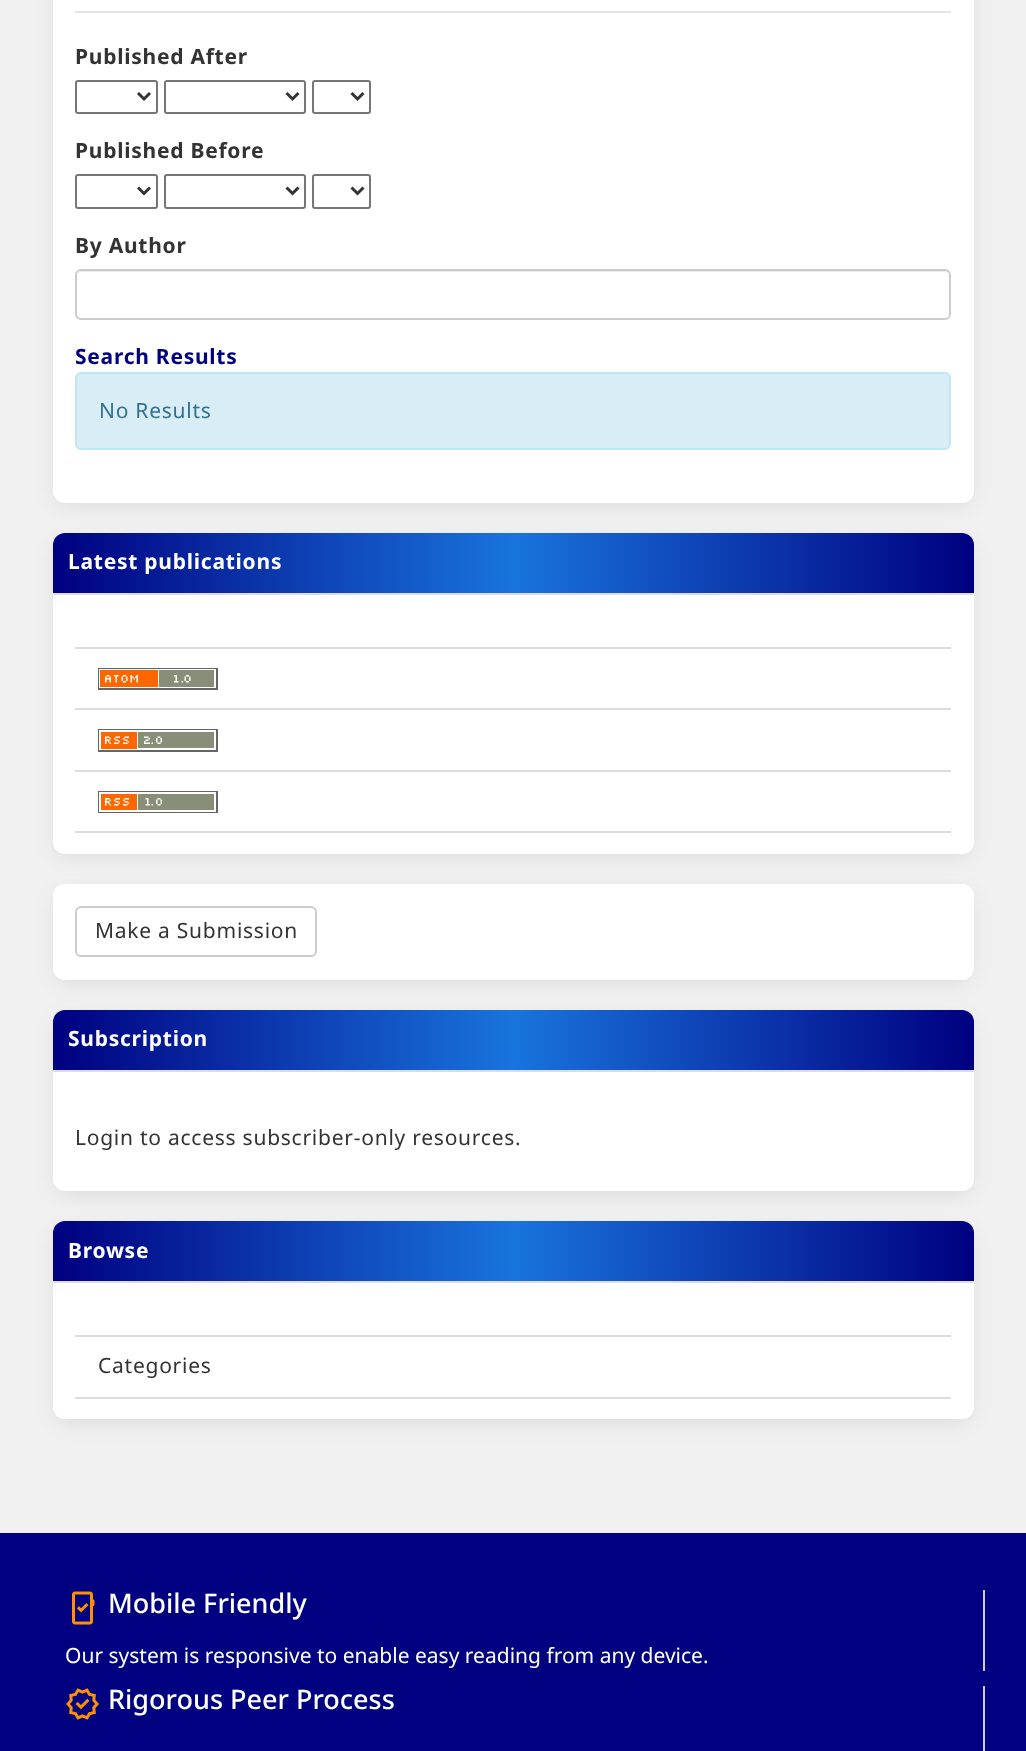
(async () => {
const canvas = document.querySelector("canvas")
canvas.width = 1026
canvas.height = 1751
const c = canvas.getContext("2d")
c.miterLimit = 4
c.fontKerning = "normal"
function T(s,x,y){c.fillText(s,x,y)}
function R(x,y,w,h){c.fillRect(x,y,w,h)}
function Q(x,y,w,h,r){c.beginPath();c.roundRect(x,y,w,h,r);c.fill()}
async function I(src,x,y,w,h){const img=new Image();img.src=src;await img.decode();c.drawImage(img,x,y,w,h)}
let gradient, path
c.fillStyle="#f1f1f1"
R(0,0,1026,1751)
c.fillStyle="#0000001a"
c.filter="blur(11px)"
c.beginPath()
c.roundRect(57,-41,912,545,8)
c.fill()
c.filter="none"
c.fillStyle="#fff"
Q(53,-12,921,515,12)
c.fillStyle="#e5e5e5"
R(75,11,876,2)
c.letterSpacing="0.75px"
c.font="bold 21px Noto Sans"
c.fillStyle="#333"
T("Published After",75,64)
c.beginPath()
c.roundRect(76,81,81,32,2)
c.strokeStyle="#767676"
c.lineWidth=2
c.stroke()
path = new Path2D("M138 93l6 6l6-6")
c.strokeStyle="#333"
c.lineWidth=3
c.stroke(path)
c.beginPath()
c.roundRect(165,81,140,32,2)
c.strokeStyle="#767676"
c.lineWidth=2
c.stroke()
path = new Path2D("M286.5 93l6 6l6-6")
c.strokeStyle="#333"
c.lineWidth=3
c.stroke(path)
c.beginPath()
c.roundRect(313,81,57,32,2)
c.strokeStyle="#767676"
c.lineWidth=2
c.stroke()
path = new Path2D("M351.5 93l6 6l6-6")
c.strokeStyle="#333"
c.lineWidth=3
c.stroke(path)
T("Published Before",75,158)
c.beginPath()
c.roundRect(76,175,81,33,2)
c.strokeStyle="#767676"
c.lineWidth=2
c.stroke()
path = new Path2D("M138 187.5l6 6l6-6")
c.strokeStyle="#333"
c.lineWidth=3
c.stroke(path)
c.beginPath()
c.roundRect(165,175,140,33,2)
c.strokeStyle="#767676"
c.lineWidth=2
c.stroke()
path = new Path2D("M286.5 187.5l6 6l6-6")
c.strokeStyle="#333"
c.lineWidth=3
c.stroke(path)
c.beginPath()
c.roundRect(313,175,57,33,2)
c.strokeStyle="#767676"
c.lineWidth=2
c.stroke()
path = new Path2D("M351.5 187.5l6 6l6-6")
c.strokeStyle="#333"
c.lineWidth=3
c.stroke(path)
T("By Author",75,253)
c.fillStyle="#ececec"
path = new Path2D("M81 272h864c2 0 5 2 5 4v-1c0-3-2-5-5-5h-863c-2 0-4 2-5 4c1-1 3-2 4-2z")
c.fill(path)
c.beginPath()
c.roundRect(76,270,874,49,5)
c.strokeStyle="#ccc"
c.lineWidth=2
c.stroke()
c.fillStyle="#000080"
T("Search Results",75,364)
c.fillStyle="#d9edf7"
c.beginPath()
c.roundRect(76,373,874,76,5)
c.fill()
c.strokeStyle="#bce8f1"
c.stroke()
c.font="21px Noto Sans"
c.fillStyle="#31708f"
T("No Results",99,418)
c.fillStyle="#0000001a"
c.filter="blur(11px)"
c.beginPath()
c.roundRect(57,543,912,312,8)
c.fill()
c.filter="none"
c.fillStyle="#fff"
Q(53,533,921,321,12)
gradient = c.createLinearGradient(53,563,974,563)
gradient.addColorStop(0,"#000080")
gradient.addColorStop(.5,"#1974de")
gradient.addColorStop(1,"#000080")
c.fillStyle = gradient
c.beginPath()
c.roundRect(53,533,921,61,[12,12,0,0])
c.fill()
c.fillStyle="#ddd"
R(53,593,921,2)
c.font="bold 21px Noto Sans"
c.fillStyle="#fff"
T("Latest publications",68,569)
c.fillStyle="#ddd"
R(75,647,876,2)
R(75,708,876,2)
await I("1.png",98,668,120,22)
await I("2.png",98,729,120,23)
R(75,770,876,2)
R(75,831,876,2)
await I("3.png",98,791,120,22)
c.fillStyle="#0000001a"
c.filter="blur(11px)"
c.beginPath()
c.roundRect(57,894,912,87,8)
c.fill()
c.filter="none"
c.fillStyle="#fff"
Q(53,884,921,96,12)
c.beginPath()
c.roundRect(76,907,240,49,5)
c.strokeStyle="#ccc"
c.stroke()
c.font="21px Noto Sans"
c.fillStyle="#333"
T("Make a Submission",95,938)
c.fillStyle="#0000001a"
c.filter="blur(11px)"
c.beginPath()
c.roundRect(57,1020,912,173,8)
c.fill()
c.filter="none"
c.fillStyle="#fff"
Q(53,1010,921,181,12)
gradient = c.createLinearGradient(53,1040,974,1040)
gradient.addColorStop(0,"#000080")
gradient.addColorStop(.5,"#1974de")
gradient.addColorStop(1,"#000080")
c.fillStyle = gradient
c.beginPath()
c.roundRect(53,1010,921,61,[12,12,0,0])
c.fill()
c.fillStyle="#ddd"
R(53,1070,921,2)
c.font="bold 21px Noto Sans"
c.fillStyle="#fff"
T("Subscription",68,1046)
c.font="21px Noto Sans"
c.fillStyle="#333"
T("Login to access subscriber-only resources.",75,1145)
c.fillStyle="#0000001a"
c.filter="blur(11px)"
c.beginPath()
c.roundRect(57,1232,912,189,8)
c.fill()
c.filter="none"
c.fillStyle="#fff"
Q(53,1221,921,198,12)
gradient = c.createLinearGradient(53,1251,974,1251)
gradient.addColorStop(0,"#000080")
gradient.addColorStop(.5,"#1974de")
gradient.addColorStop(1,"#000080")
c.fillStyle = gradient
c.beginPath()
c.roundRect(53,1221,921,62,[12,12,0,0])
c.fill()
c.fillStyle="#ddd"
R(53,1281,921,2)
c.font="bold 21px Noto Sans"
c.fillStyle="#fff"
T("Browse",68,1258)
c.fillStyle="#ddd"
R(75,1335,876,2)
R(75,1397,876,2)
c.font="21px Noto Sans"
c.fillStyle="#333"
T("Categories",98,1373)
c.fillStyle="#000080"
R(0,1533,1026,218)
c.fillStyle="#ccc"
R(983,1590,2,81)
await I("4.png",72,1591,23,34)
c.letterSpacing="0px"
c.font="500 27px Noto Sans"
c.fillStyle="#fff"
T("Mobile Friendly",108,1613)
c.font="21px Noto Sans"
T("Our system is responsive to enable easy reading from any device.",65,1663)
c.fillStyle="#ccc"
R(983,1686,2,65)
await I("5.png",66,1688,33,32)
c.font="500 27px Noto Sans"
c.fillStyle="#fff"
T("Rigorous Peer Process",108,1709)
})()
